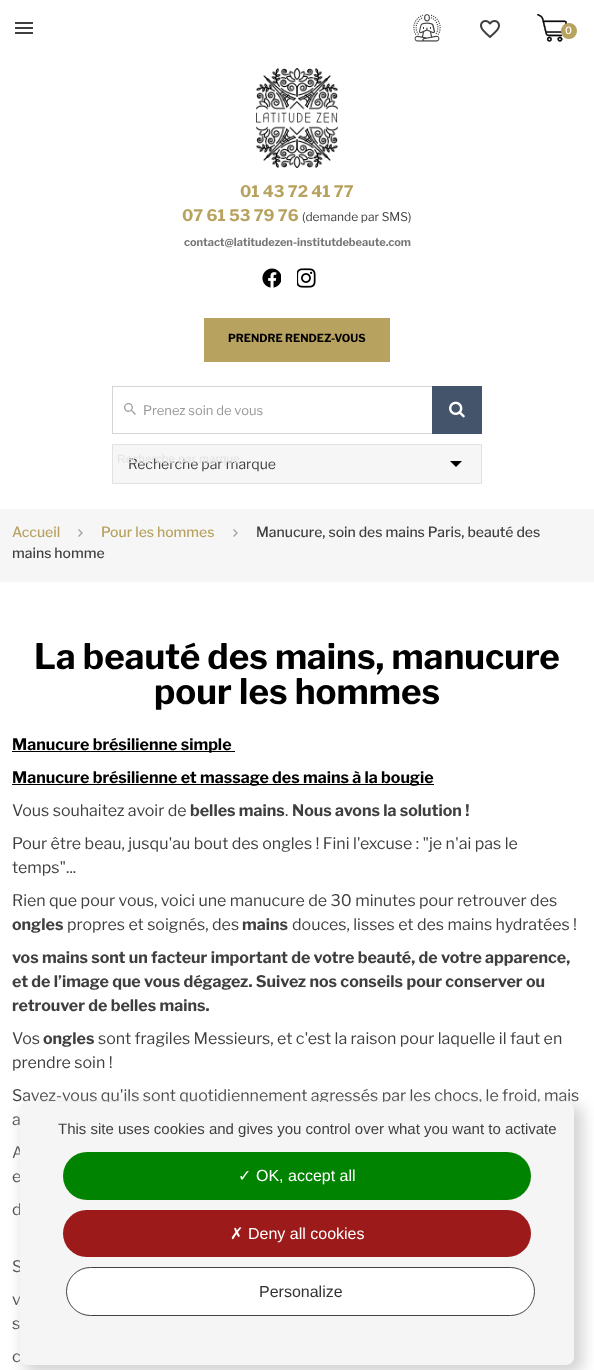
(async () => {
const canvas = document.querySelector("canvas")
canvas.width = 594
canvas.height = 1370
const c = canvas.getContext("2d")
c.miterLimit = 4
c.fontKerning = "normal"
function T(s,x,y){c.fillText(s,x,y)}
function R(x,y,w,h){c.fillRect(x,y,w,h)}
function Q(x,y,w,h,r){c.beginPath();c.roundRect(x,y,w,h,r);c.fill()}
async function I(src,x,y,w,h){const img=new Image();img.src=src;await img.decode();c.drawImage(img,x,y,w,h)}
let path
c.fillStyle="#fff"
R(0,0,594,1370)
await I("1.png",15,22,18,12)
await I("2.png",413,14,28,28)
await I("3.png",480,20,20,18)
await I("4.png",537,14,30,28)
c.fillStyle="#b7a25f"
c.beginPath()
c.arc(569,31,8,0,7)
c.fill()
c.font="500 10px Libre Franklin"
c.fillStyle="#fff"
T("0",565,34)
await I("5.png",256,68,82,100)
c.font="bold 16px Libre Franklin"
c.fillStyle="#b7a25f"
T("01 43 72 41 77",240,197)
T("07 61 53 79 76",182,221)
c.font="12px Libre Franklin"
c.fillStyle="#3f3f3f"
T("(demande par SMS)",302,221)
c.font="bold 11px Libre Franklin"
c.fillStyle="#777"
T("contact@latitudezen-institutdebeaute.com",184,246)
await I("6.png",262,268,19,20)
await I("7.png",297,268,19,20)
c.fillStyle="#b7a25f"
R(204,318,186,44)
c.fillStyle="#000"
T("PRENDRE RENDEZ-VOUS",228,342)
await I("8.png",124,403,12,12)
c.strokeStyle="#d6d4d4"
c.strokeRect(112.5,386.5,369,47)
c.font="13px Libre Franklin"
c.fillStyle="#999"
T("Prenez soin de vous",143,415)
c.fillStyle="#44546a"
R(432,386,50,48)
await I("9.png",449,401,16,17)
c.fillStyle="#f6f6f6"
c.beginPath()
c.rect(112.5,444.5,369,39)
c.fill()
c.strokeStyle="#e2e2e2"
c.stroke()
c.font="14px Libre Franklin"
c.fillStyle="#3f3f3f"
T("Recherche par marque",128,469)
c.font="12px Liberation Sans"
c.fillStyle="#e3e3e3"
T("Recherche par marque",117,463)
c.fillStyle="#000"
path = new Path2D("M450 461h12l-6 6z")
c.fill(path)
c.fillStyle="#f6f6f6"
R(0,509,594,73)
c.font="500 14px Libre Franklin"
c.fillStyle="#b7a25f"
T("Accueil",12,537)
await I("10.png",78,529,5,8)
T("Pour les hommes",101,537)
await I("10.png",233,529,5,8)
c.fillStyle="#3f3f3f"
T("Manucure, soin des mains Paris, beauté des",256,537)
T("mains homme",12,558)
c.font="bold 35px Libre Franklin"
c.fillStyle="#000"
T("La beauté des mains, manucure",34,669)
T("pour les hommes",154,704)
R(12,751,223,1)
c.font="bold 16px Libre Franklin"
T("Manucure brésilienne simple",12,750)
R(12,784,422,1)
T("Manucure brésilienne et massage des mains à la bougie",12,783)
c.font="16px Libre Franklin"
c.fillStyle="#3f3f3f"
T("Vous souhaitez avoir de",12,816)
c.font="bold 16px Libre Franklin"
T("belles mains",190,816)
c.font="16px Libre Franklin"
T(".",285,816)
c.font="bold 16px Libre Franklin"
T("Nous avons la solution !",292,816)
c.font="16px Libre Franklin"
T("Pour être beau, jusqu'au bout des ongles ! Fini l'excuse : \"je n'ai pas le",12,849)
T("temps\"...",12,873)
T("Rien que pour vous, voici une manucure de 30 minutes pour retrouver des",12,906)
c.font="bold 16px Libre Franklin"
T("ongles",12,930)
c.font="16px Libre Franklin"
T("propres et soignés, des",67,930)
c.font="bold 16px Libre Franklin"
T("mains",242,930)
c.font="16px Libre Franklin"
T("douces, lisses et des mains hydratées !",292,930)
c.font="bold 16px Libre Franklin"
T("vos mains sont un facteur important de votre beauté, de votre apparence,",12,963)
T("et de l’image que vous dégagez. Suivez nos conseils pour conserver ou",12,987)
T("retrouver de belles mains.",12,1011)
c.font="16px Libre Franklin"
T("Vos",12,1044)
c.font="bold 16px Libre Franklin"
T("ongles",43,1044)
c.font="16px Libre Franklin"
T("sont fragiles Messieurs, et c'est la raison pour laquelle il faut en",98,1044)
T("prendre soin !",12,1068)
T("Savez-vous qu'ils sont quotidiennement agressés par les chocs, le froid, mais",12,1101)
T("a",12,1125)
T("A",12,1158)
T("e",12,1182)
T("d",12,1215)
T("S",12,1272)
T("v",12,1305)
T("s",12,1329)
T("c",12,1362)
c.fillStyle="#d3d3d3"
c.filter="blur(7.5px)"
c.beginPath()
c.roundRect(23,1105,560,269,11)
c.fill()
c.filter="none"
c.fillStyle="#f5f5f5"
Q(20,1102,554,263,8)
c.font="15px Liberation Sans"
c.fillStyle="#3f3f3f"
T("This site uses cookies and gives you control over what you want to activate",58,1134)
c.fillStyle="#008300"
Q(63,1152,468,48,24)
c.font="16px DejaVu Sans"
c.fillStyle="#fff"
T("✓",238,1181)
c.font="16px Liberation Sans"
T("OK, accept all",256,1181)
c.fillStyle="#9c1a1a"
Q(63,1210,468,47,23.5)
c.font="16px DejaVu Sans"
c.fillStyle="#fff"
T("✗",230,1239)
c.font="16px Liberation Sans"
T("Deny all cookies",248,1239)
c.beginPath()
c.roundRect(66.5,1267.5,468,48,24)
c.fill()
c.strokeStyle="#424242"
c.stroke()
c.fillStyle="#333"
T("Personalize",259,1297)
})()
